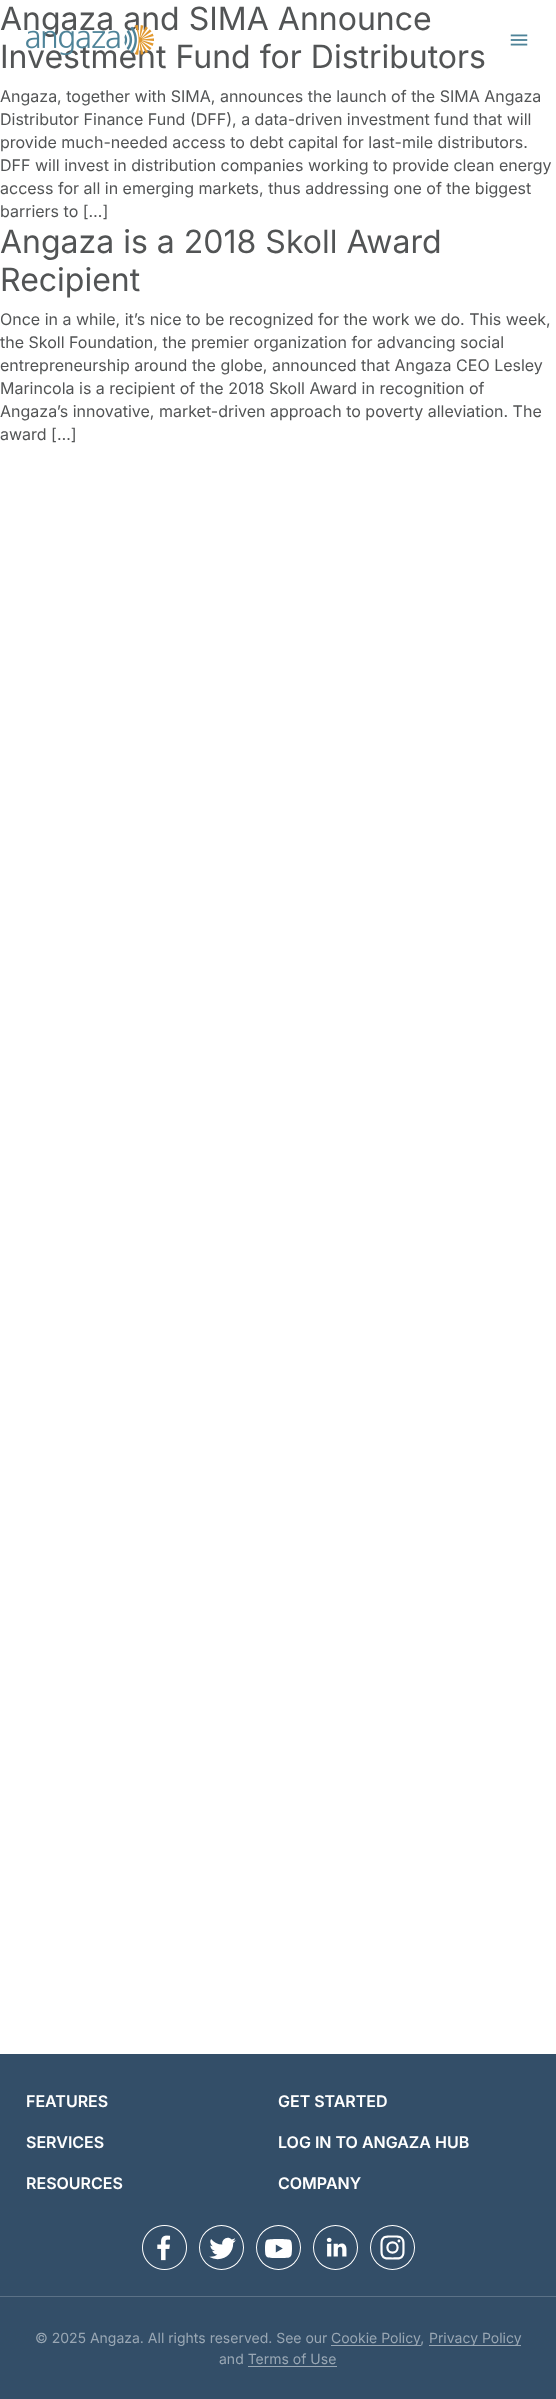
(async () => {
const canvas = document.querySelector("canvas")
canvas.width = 556
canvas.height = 2399
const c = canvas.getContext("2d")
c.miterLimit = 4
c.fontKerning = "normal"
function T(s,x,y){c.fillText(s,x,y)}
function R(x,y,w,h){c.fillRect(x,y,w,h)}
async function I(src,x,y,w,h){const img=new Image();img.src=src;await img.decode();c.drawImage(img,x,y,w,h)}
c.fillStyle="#fff"
R(0,0,556,2399)
c.font="32px Inter"
c.fillStyle="#525455"
T("Angaza and SIMA Announce",0,30)
T("Investment Fund for Distributors",0,68)
c.font="16px Inter"
T("Angaza, together with SIMA, announces the launch of the SIMA Angaza",0,102)
T("Distributor Finance Fund (DFF), a data-driven investment fund that will",0,125)
T("provide much-needed access to debt capital for last-mile distributors.",0,148)
T("DFF will invest in distribution companies working to provide clean energy",0,171)
T("access for all in emerging markets, thus addressing one of the biggest",0,194)
T("barriers to […]",0,217)
await I("1.png",26,25,128,30)
await I("2.png",510,34,18,12)
c.font="32px Inter"
T("Angaza is a 2018 Skoll Award",0,253)
T("Recipient",0,291)
c.font="16px Inter"
T("Once in a while, it’s nice to be recognized for the work we do. This week,",0,325)
T("the Skoll Foundation, the premier organization for advancing social",0,348)
T("entrepreneurship around the globe, announced that Angaza CEO Lesley",0,371)
T("Marincola is a recipient of the 2018 Skoll Award in recognition of",0,394)
T("Angaza’s innovative, market-driven approach to poverty alleviation. The",0,417)
T("award […]",0,440)
c.fillStyle="#334e68"
R(0,2054,556,345)
c.font="600 16px Inter"
c.fillStyle="#fff"
T("FEATURES",26,2107)
T("GET STARTED",278,2107)
T("SERVICES",26,2148)
T("LOG IN TO ANGAZA HUB",278,2148)
T("RESOURCES",26,2189)
T("COMPANY",278,2189)
await I("3.png",142,2225,45,45)
await I("4.png",199,2225,45,45)
await I("5.png",256,2225,45,45)
await I("6.png",313,2225,45,45)
await I("7.png",370,2225,45,45)
c.fillStyle="#5c7186"
R(0,2296,556,1)
c.font="14px Inter"
c.fillStyle="#99a7b4"
T("© 2025 Angaza. All rights reserved. See our",35,2343)
R(331,2345,90,1)
T("Cookie Policy,",331,2343)
R(429,2345,92,1)
T("Privacy Policy",429,2343)
T("and Terms of Use",219,2364)
R(248,2366,89,1)
})()
